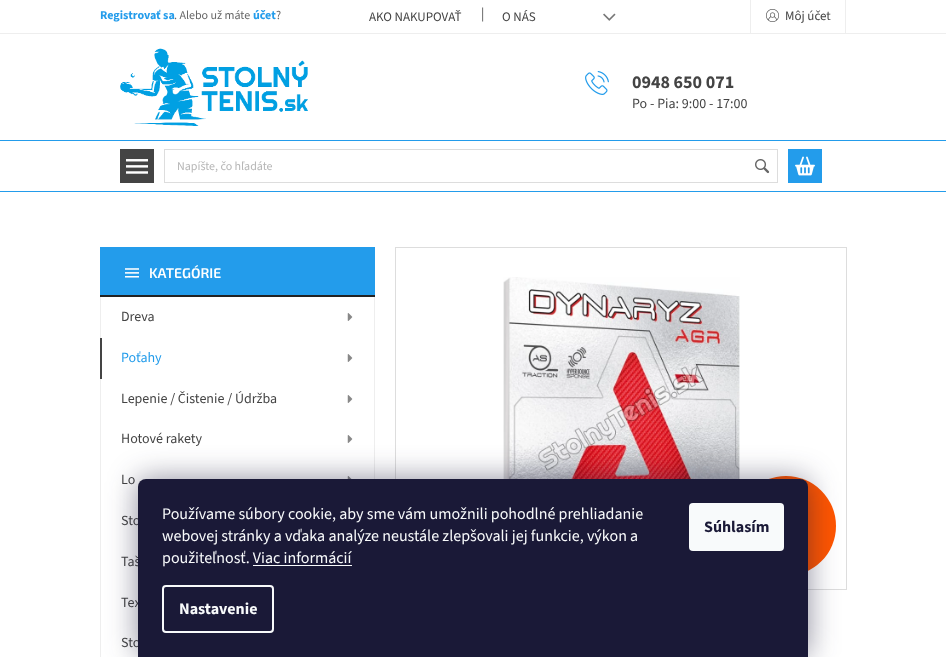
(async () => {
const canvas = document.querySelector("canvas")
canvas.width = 946
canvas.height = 657
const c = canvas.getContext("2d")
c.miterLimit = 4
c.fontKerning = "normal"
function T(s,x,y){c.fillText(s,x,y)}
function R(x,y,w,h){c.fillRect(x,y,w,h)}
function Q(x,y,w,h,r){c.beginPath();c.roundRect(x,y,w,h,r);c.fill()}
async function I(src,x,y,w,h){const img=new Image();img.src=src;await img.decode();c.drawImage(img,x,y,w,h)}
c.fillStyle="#fff"
R(0,0,946,657)
c.fillStyle="#eee"
R(0,33,946,1)
c.font="bold 12px 'Source Sans 3'"
c.fillStyle="#239ceb"
T("Registrovať sa",100,19)
c.font="12px 'Source Sans 3'"
c.fillStyle="#666"
T(". Alebo už máte",174,19)
c.font="bold 12px 'Source Sans 3'"
c.fillStyle="#239ceb"
T("účet",253,19)
c.font="12px 'Source Sans 3'"
c.fillStyle="#666"
T("?",276,19)
c.font="13px 'Source Sans 3'"
c.fillStyle="#444"
T("AKO NAKUPOVAŤ",369,21)
c.font="14px 'Source Sans 3'"
c.fillStyle="#4d4d4d"
T("|",481,18)
c.font="13px 'Source Sans 3'"
c.fillStyle="#444"
T("O NÁS",502,21)
await I("1.png",603,13,13,8)
c.fillStyle="#eee"
R(845,0,1,33)
R(750,0,1,33)
await I("2.png",766,9,13,13)
c.fillStyle="#444"
T("Môj účet",785,20)
c.fillStyle="#239ceb"
R(0,191,946,1)
await I("3.png",120,48,188,78)
await I("4.png",585,71,24,24)
c.font="bold 18px 'Source Sans 3'"
c.fillStyle="#444"
T("0948 650 071",632,88)
c.font="14px 'Source Sans 3'"
T("Po - Pia: 9:00 - 17:00",632,108)
R(120,149,34,34)
await I("5.png",126,159,22,15)
c.strokeStyle="#ddd"
c.strokeRect(164.5,149.5,613,33)
c.font="12px 'Source Sans 3'"
c.fillStyle="#b6b6b6"
T("Napíšte, čo hľadáte",177,170)
await I("6.png",755,159,15,15)
c.fillStyle="#239ceb"
R(788,149,34,34)
await I("7.png",795,156,20,20)
R(0,140,946,1)
R(100,247,275,48)
c.fillStyle="#222"
R(100,295,275,2)
await I("8.png",125,268,14,10)
c.font="600 14px 'Exo 2'"
c.fillStyle="#fff"
T("KATEGÓRIE",149,278)
c.fillStyle="#eee"
R(374,297,1,182)
R(100,297,1,360)
c.font="14px 'Source Sans 3'"
c.fillStyle="#444"
T("Dreva",121,321)
await I("9.png",347,313,6,8)
R(100,338,2,41)
c.fillStyle="#239ceb"
T("Poťahy",121,362)
await I("9.png",347,354,6,8)
c.fillStyle="#444"
T("Lepenie / Čistenie / Údržba",121,403)
await I("9.png",347,395,6,8)
T("Hotové rakety",121,443)
await I("9.png",347,435,6,8)
T("Lo",121,484)
await I("10.png",347,476,5,3)
T("Sto",121,525)
T("Taš",121,566)
T("Tex",121,607)
T("Sto",121,647)
c.strokeRect(395.5,247.5,451,342)
await I("11.png",503,277,237,202)
c.fillStyle="#f50"
c.beginPath()
c.arc(786,526,50,0,7)
c.fill()
c.fillStyle="#1b193980"
c.filter="blur(15px)"
c.beginPath()
c.roundRect(138,479,670,178,8)
c.fill()
c.filter="none"
c.fillStyle="#1a1937"
c.beginPath()
c.roundRect(138,479,670,178,[8,8,0,0])
c.fill()
c.font="16px 'Source Sans 3'"
c.fillStyle="#f8fafb"
T("Používame súbory cookie, aby sme vám umožnili pohodlné prehliadanie",162,519)
T("webovej stránky a vďaka analýze neustále zlepšovali jej funkcie, výkon a",162,541)
T("použiteľnosť. Viac informácií",162,563)
R(253,565,99,1)
c.beginPath()
c.roundRect(163,586,110,46,3)
c.strokeStyle="#f8fafb"
c.lineWidth=2
c.stroke()
c.font="bold 16px 'Source Sans 3'"
T("Nastavenie",179,614)
Q(689,503,95,48,4)
c.fillStyle="#1a1937"
T("Súhlasím",704,532)
})()
